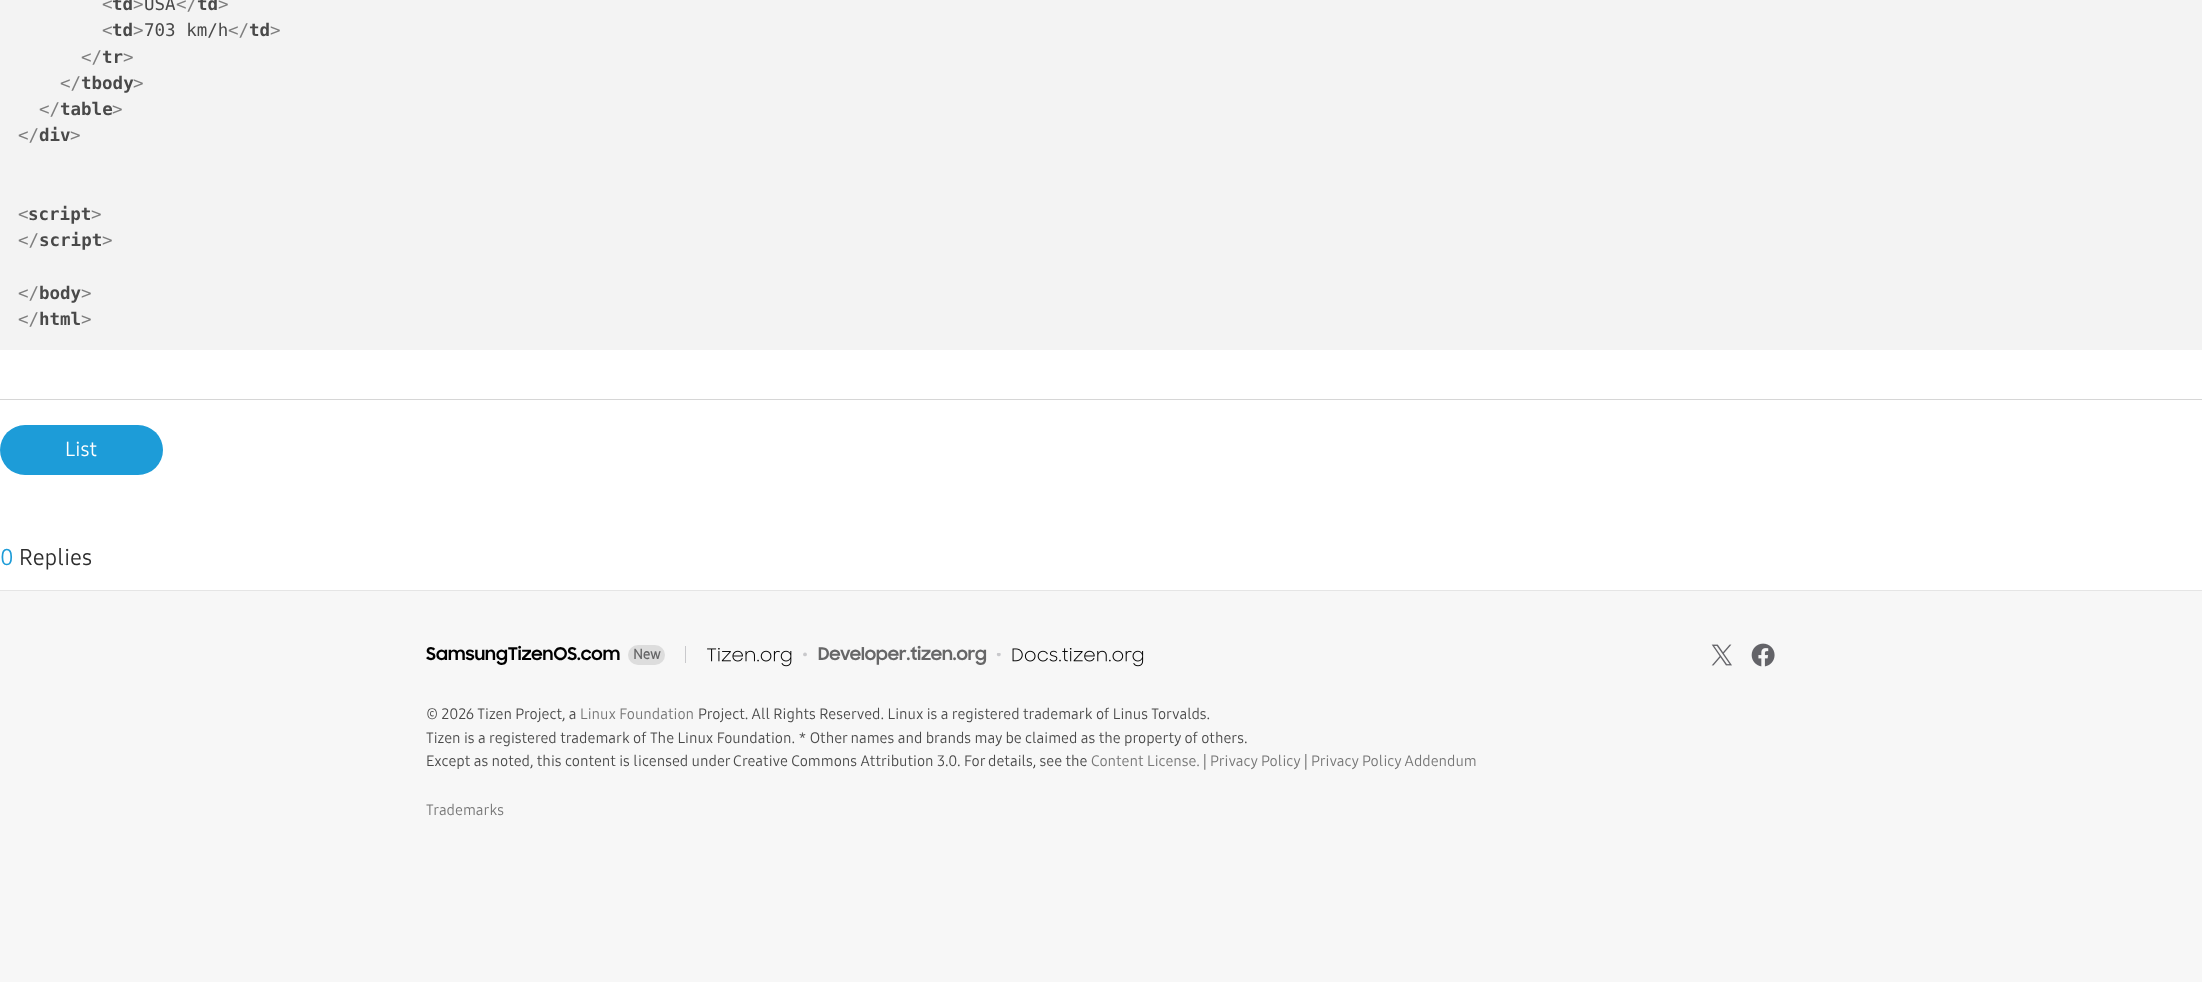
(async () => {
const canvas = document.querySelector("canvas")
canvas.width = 2202
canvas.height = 982
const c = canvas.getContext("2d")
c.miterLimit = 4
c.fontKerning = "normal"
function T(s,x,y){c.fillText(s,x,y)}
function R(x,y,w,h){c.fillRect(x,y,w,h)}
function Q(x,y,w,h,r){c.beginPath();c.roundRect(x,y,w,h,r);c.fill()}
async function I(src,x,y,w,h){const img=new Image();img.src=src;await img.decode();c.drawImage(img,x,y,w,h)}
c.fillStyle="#f7f7f7"
R(0,0,2202,982)
c.fillStyle="#fff"
R(0,350,2202,240)
c.fillStyle="#d6d6d6"
R(0,399,2202,1)
c.fillStyle="#f3f3f3"
R(0,0,2202,350)
c.font="17.5px DejaVu Sans Mono"
c.fillStyle="#7e7e7e"
T("<",102,10)
c.font="bold 17.5px DejaVu Sans Mono"
c.fillStyle="#494949"
T("td",112,10)
c.font="17.5px DejaVu Sans Mono"
c.fillStyle="#7e7e7e"
T(">",133,10)
c.fillStyle="#494949"
T("USA",144,10)
c.fillStyle="#7e7e7e"
T("<\/",176,10)
c.font="bold 17.5px DejaVu Sans Mono"
c.fillStyle="#494949"
T("td",197,10)
c.font="17.5px DejaVu Sans Mono"
c.fillStyle="#7e7e7e"
T(">",218,10)
T("<",102,36)
c.font="bold 17.5px DejaVu Sans Mono"
c.fillStyle="#494949"
T("td",112,36)
c.font="17.5px DejaVu Sans Mono"
c.fillStyle="#7e7e7e"
T(">",133,36)
c.fillStyle="#494949"
T("703 km/h",144,36)
c.fillStyle="#7e7e7e"
T("<\/",228,36)
c.font="bold 17.5px DejaVu Sans Mono"
c.fillStyle="#494949"
T("td",249,36)
c.font="17.5px DejaVu Sans Mono"
c.fillStyle="#7e7e7e"
T(">",270,36)
T("<\/",81,63)
c.font="bold 17.5px DejaVu Sans Mono"
c.fillStyle="#494949"
T("tr",102,63)
c.font="17.5px DejaVu Sans Mono"
c.fillStyle="#7e7e7e"
T(">",123,63)
T("<\/",60,89)
c.font="bold 17.5px DejaVu Sans Mono"
c.fillStyle="#494949"
T("tbody",81,89)
c.font="17.5px DejaVu Sans Mono"
c.fillStyle="#7e7e7e"
T(">",133,89)
T("<\/",39,115)
c.font="bold 17.5px DejaVu Sans Mono"
c.fillStyle="#494949"
T("table",60,115)
c.font="17.5px DejaVu Sans Mono"
c.fillStyle="#7e7e7e"
T(">",112,115)
T("<\/",18,141)
c.font="bold 17.5px DejaVu Sans Mono"
c.fillStyle="#494949"
T("div",39,141)
c.font="17.5px DejaVu Sans Mono"
c.fillStyle="#7e7e7e"
T(">",70,141)
T("<",18,220)
c.font="bold 17.5px DejaVu Sans Mono"
c.fillStyle="#494949"
T("script",28,220)
c.font="17.5px DejaVu Sans Mono"
c.fillStyle="#7e7e7e"
T(">",91,220)
T("<\/",18,246)
c.font="bold 17.5px DejaVu Sans Mono"
c.fillStyle="#494949"
T("script",39,246)
c.font="17.5px DejaVu Sans Mono"
c.fillStyle="#7e7e7e"
T(">",102,246)
T("<\/",18,299)
c.font="bold 17.5px DejaVu Sans Mono"
c.fillStyle="#494949"
T("body",39,299)
c.font="17.5px DejaVu Sans Mono"
c.fillStyle="#7e7e7e"
T(">",81,299)
T("<\/",18,325)
c.font="bold 17.5px DejaVu Sans Mono"
c.fillStyle="#494949"
T("html",39,325)
c.font="17.5px DejaVu Sans Mono"
c.fillStyle="#7e7e7e"
T(">",81,325)
c.fillStyle="#1d9cd8"
Q(0,425,163,50,25)
c.font="20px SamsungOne"
c.fillStyle="#fff"
T("List",65,456)
c.font="22.5px SamsungOne"
c.fillStyle="#1d9cd8"
T("0",0,565)
c.fillStyle="#2d2d2d"
T("Replies",19,565)
c.fillStyle="#e5e5e5"
R(0,590,2202,1)
c.font="bold 17.5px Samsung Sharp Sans"
c.fillStyle="#000"
T("SamsungTizenOS.com",426,660)
c.fillStyle="#ddd"
Q(628,645,37,20,10)
c.font="bold 14px SamsungOne"
c.fillStyle="#676768"
T("New",633,659)
c.fillStyle="#c9c9cc"
R(685,646,1,17)
await I("1.png",707,648,85,19)
c.beginPath()
c.arc(805,654.4,1.9,0,7)
c.fill()
c.font="bold 17.5px Samsung Sharp Sans"
c.fillStyle="#676768"
T("Developer.tizen.org",818,660)
c.save()
c.beginPath()
c.rect(996,653,5,4)
c.clip()
c.fillStyle="#c9c9cc"
c.beginPath()
c.arc(998.8,654.4,1.9,0,7)
c.fill()
c.restore()
await I("2.png",1012,648,132,19)
await I("3.png",1711,644,21,22)
await I("4.png",1751,643,24,24)
c.font="15px SamsungOne"
c.fillStyle="#494949"
T("© 2026 Tizen Project, a",426,719)
c.fillStyle="#767676"
T("Linux Foundation",580,719)
c.fillStyle="#494949"
T("Project. All Rights Reserved. Linux is a registered trademark of Linus Torvalds.",698,719)
T("Tizen is a registered trademark of The Linux Foundation. * Other names and brands may be claimed as the property of others.",426,743)
T("Except as noted, this content is licensed under Creative Commons Attribution 3.0. For details, see the",426,766)
c.fillStyle="#767676"
T("Content License.",1091,766)
c.fillStyle="#494949"
T("|",1203,766)
c.fillStyle="#767676"
T("Privacy Policy",1210,766)
c.fillStyle="#494949"
T("|",1304,766)
c.fillStyle="#767676"
T("Privacy Policy Addendum",1311,766)
T("Trademarks",426,815)
})()
